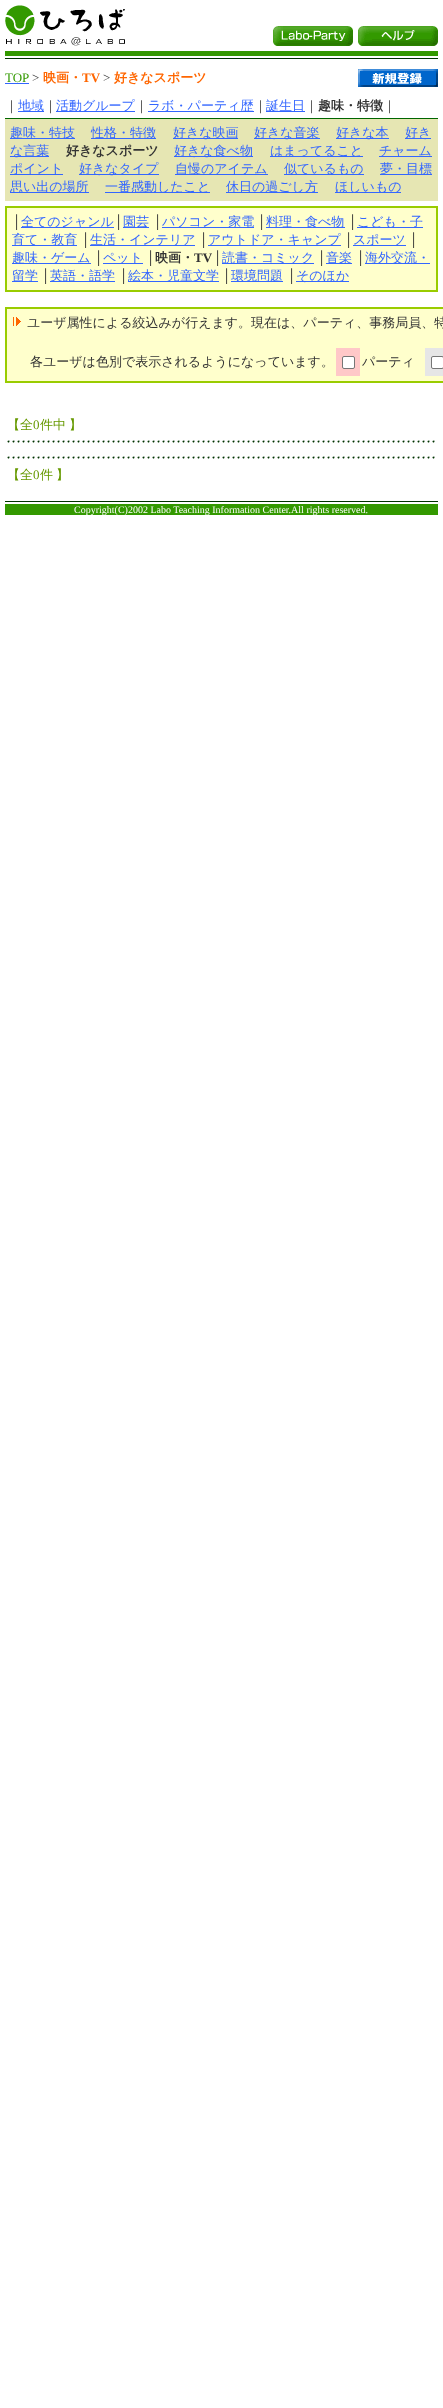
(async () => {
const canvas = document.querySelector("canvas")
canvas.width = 443
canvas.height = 2408
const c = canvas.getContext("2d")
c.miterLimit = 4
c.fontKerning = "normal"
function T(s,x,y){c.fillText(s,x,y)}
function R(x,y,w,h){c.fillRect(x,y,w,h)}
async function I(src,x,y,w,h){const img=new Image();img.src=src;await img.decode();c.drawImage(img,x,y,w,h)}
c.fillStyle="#fff"
R(0,0,443,2408)
await I("1.png",5,5,120,41)
await I("2.png",273,26,80,20)
await I("3.png",358,26,80,20)
c.fillStyle="#390"
R(5,51,433,5)
c.fillStyle="#030"
R(5,58,433,1)
c.font="13px Liberation Serif"
c.fillStyle="#390"
T("TOP",5,82)
c.fillStyle="#36f"
R(5,83,24,1)
c.fillStyle="#333"
T(">",32,82)
c.font="bold 13px WenQuanYi Zen Hei"
c.fillStyle="#f60"
T("映画・",43,82)
c.font="bold 13px Liberation Serif"
T("TV",82,82)
c.font="13px Liberation Serif"
c.fillStyle="#333"
T(">",103,82)
c.font="bold 13px WenQuanYi Zen Hei"
c.fillStyle="#f60"
T("好きなスポーツ",114,82)
await I("4.png",358,69,80,18)
c.font="500 13px WenQuanYi Zen Hei"
c.fillStyle="#333"
T("｜",5,110)
c.fillStyle="#36f"
R(18,111,26,1)
T("地域",18,110)
c.fillStyle="#333"
T("｜",44,110)
c.fillStyle="#36f"
R(56,111,79,1)
T("活動グループ",56,110)
c.fillStyle="#333"
T("｜",135,110)
c.fillStyle="#36f"
R(148,111,106,1)
T("ラボ・パーティ歴",148,110)
c.fillStyle="#333"
T("｜",254,110)
c.fillStyle="#36f"
R(266,111,39,1)
T("誕生日",266,110)
c.fillStyle="#333"
T("｜",305,110)
c.font="bold 13px WenQuanYi Zen Hei"
T("趣味・特徴",318,110)
c.font="500 13px WenQuanYi Zen Hei"
T("｜",383,110)
c.fillStyle="#060"
R(5,118,433,1)
c.fillStyle="#e6e6b3"
R(5,119,433,82)
c.fillStyle="#36f"
R(10,138,65,1)
T("趣味・特技",10,137)
R(91,138,65,1)
T("性格・特徴",91,137)
R(173,138,65,1)
T("好きな映画",173,137)
R(254,138,66,1)
T("好きな音楽",254,137)
R(336,138,53,1)
T("好きな本",336,137)
R(405,138,26,1)
T("好き",405,137)
R(10,156,39,1)
T("な言葉",10,155)
c.font="bold 13px WenQuanYi Zen Hei"
c.fillStyle="#333"
T("好きなスポーツ",66,155)
c.fillStyle="#36f"
R(174,156,79,1)
c.font="500 13px WenQuanYi Zen Hei"
T("好きな食べ物",174,155)
R(270,156,93,1)
T("はまってること",270,155)
R(379,156,53,1)
T("チャーム",379,155)
R(10,174,53,1)
T("ポイント",10,173)
R(79,174,80,1)
T("好きなタイプ",79,173)
R(175,174,93,1)
T("自慢のアイテム",175,173)
R(284,174,80,1)
T("似ているもの",284,173)
R(380,174,52,1)
T("夢・目標",380,173)
R(10,192,79,1)
T("思い出の場所",10,191)
R(105,192,105,1)
T("一番感動したこと",105,191)
R(226,192,92,1)
T("休日の過ごし方",226,191)
R(335,192,66,1)
T("ほしいもの",335,191)
c.fillStyle="#9c0"
R(5,206,433,86)
c.fillStyle="#ffc"
R(7,208,429,82)
c.font="13px Liberation Serif"
c.fillStyle="#333"
T("│",12,226)
c.fillStyle="#36f"
R(21,227,93,1)
c.font="500 13px WenQuanYi Zen Hei"
T("全てのジャンル",21,226)
c.font="13px Liberation Serif"
c.fillStyle="#333"
T("│",114,226)
c.fillStyle="#36f"
R(123,227,26,1)
c.font="500 13px WenQuanYi Zen Hei"
T("園芸",123,226)
c.font="13px Liberation Serif"
c.fillStyle="#333"
T("│",153,226)
c.fillStyle="#36f"
R(162,227,92,1)
c.font="500 13px WenQuanYi Zen Hei"
T("パソコン・家電",162,226)
c.font="13px Liberation Serif"
c.fillStyle="#333"
T("│",257,226)
c.fillStyle="#36f"
R(266,227,79,1)
c.font="500 13px WenQuanYi Zen Hei"
T("料理・食べ物",266,226)
c.font="13px Liberation Serif"
c.fillStyle="#333"
T("│",348,226)
c.fillStyle="#36f"
R(357,227,66,1)
c.font="500 13px WenQuanYi Zen Hei"
T("こども・子",357,226)
R(12,245,65,1)
T("育て・教育",12,244)
c.font="13px Liberation Serif"
c.fillStyle="#333"
T("│",81,244)
c.fillStyle="#36f"
R(90,245,105,1)
c.font="500 13px WenQuanYi Zen Hei"
T("生活・インテリア",90,244)
c.font="13px Liberation Serif"
c.fillStyle="#333"
T("│",199,244)
c.fillStyle="#36f"
R(208,245,133,1)
c.font="500 13px WenQuanYi Zen Hei"
T("アウトドア・キャンプ",208,244)
c.font="13px Liberation Serif"
c.fillStyle="#333"
T("│",344,244)
c.fillStyle="#36f"
R(353,245,53,1)
c.font="500 13px WenQuanYi Zen Hei"
T("スポーツ",353,244)
c.font="13px Liberation Serif"
c.fillStyle="#333"
T("│",409,244)
c.fillStyle="#36f"
R(12,263,79,1)
c.font="500 13px WenQuanYi Zen Hei"
T("趣味・ゲーム",12,262)
c.font="13px Liberation Serif"
c.fillStyle="#333"
T("│",94,262)
c.fillStyle="#36f"
R(103,263,40,1)
c.font="500 13px WenQuanYi Zen Hei"
T("ペット",103,262)
c.font="13px Liberation Serif"
c.fillStyle="#333"
T("│",146,262)
c.font="bold 13px WenQuanYi Zen Hei"
T("映画・",155,262)
c.font="bold 13px Liberation Serif"
T("TV",194,262)
c.font="13px Liberation Serif"
T("│",213,262)
c.fillStyle="#36f"
R(222,263,92,1)
c.font="500 13px WenQuanYi Zen Hei"
T("読書・コミック",222,262)
c.font="13px Liberation Serif"
c.fillStyle="#333"
T("│",317,262)
c.fillStyle="#36f"
R(326,263,26,1)
c.font="500 13px WenQuanYi Zen Hei"
T("音楽",326,262)
c.font="13px Liberation Serif"
c.fillStyle="#333"
T("│",356,262)
c.fillStyle="#36f"
R(365,263,65,1)
c.font="500 13px WenQuanYi Zen Hei"
T("海外交流・",365,262)
R(12,281,26,1)
T("留学",12,280)
c.font="13px Liberation Serif"
c.fillStyle="#333"
T("│",41,280)
c.fillStyle="#36f"
R(50,281,65,1)
c.font="500 13px WenQuanYi Zen Hei"
T("英語・語学",50,280)
c.font="13px Liberation Serif"
c.fillStyle="#333"
T("│",119,280)
c.fillStyle="#36f"
R(128,281,91,1)
c.font="500 13px WenQuanYi Zen Hei"
T("絵本・児童文学",128,280)
c.font="13px Liberation Serif"
c.fillStyle="#333"
T("│",222,280)
c.fillStyle="#36f"
R(231,281,52,1)
c.font="500 13px WenQuanYi Zen Hei"
T("環境問題",231,280)
c.font="13px Liberation Serif"
c.fillStyle="#333"
T("│",287,280)
c.fillStyle="#36f"
R(296,281,53,1)
c.font="500 13px WenQuanYi Zen Hei"
T("そのほか",296,280)
c.fillStyle="#9c0"
R(5,307,438,76)
c.fillStyle="#ffc"
R(7,309,436,72)
await I("5.png",13,317,8,9)
c.fillStyle="#333"
T("ユーザ属性による絞込みが行えます。現在は、パーティ、事務局員、特",27,327)
T("各ユーザは色別で表示されるようになっています。",30,366)
c.fillStyle="#ffc8c8"
R(336,348,24,28)
c.fillStyle="#fff"
c.beginPath()
c.roundRect(342.5,356.5,12,12,1.5)
c.fill()
c.strokeStyle="#767676"
c.stroke()
c.fillStyle="#333"
T("パーティ",362,366)
c.fillStyle="#e6e6e6"
R(425,348,18,28)
c.fillStyle="#fff"
c.beginPath()
c.roundRect(431.5,356.5,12,12,1.5)
c.fill()
c.stroke()
c.fillStyle="#690"
T("【全",7,429)
c.font="13px Liberation Serif"
T("0",33,429)
c.wordSpacing="-1px"
c.font="500 13px WenQuanYi Zen Hei"
T("件中 】",40,429)
await I("6.png",7,440,428,3)
await I("6.png",7,456,428,3)
c.wordSpacing="0px"
T("【全",7,479)
c.font="13px Liberation Serif"
T("0",33,479)
c.wordSpacing="-1px"
c.font="500 13px WenQuanYi Zen Hei"
T("件 】",40,479)
c.fillStyle="#030"
R(5,501,433,1)
c.fillStyle="#390"
R(5,504,433,11)
c.wordSpacing="0px"
c.font="10px Liberation Serif"
c.fillStyle="#fff"
T("Copyright(C)2002 Labo Teaching Information Center.All rights reserved.",74,513)
})()
